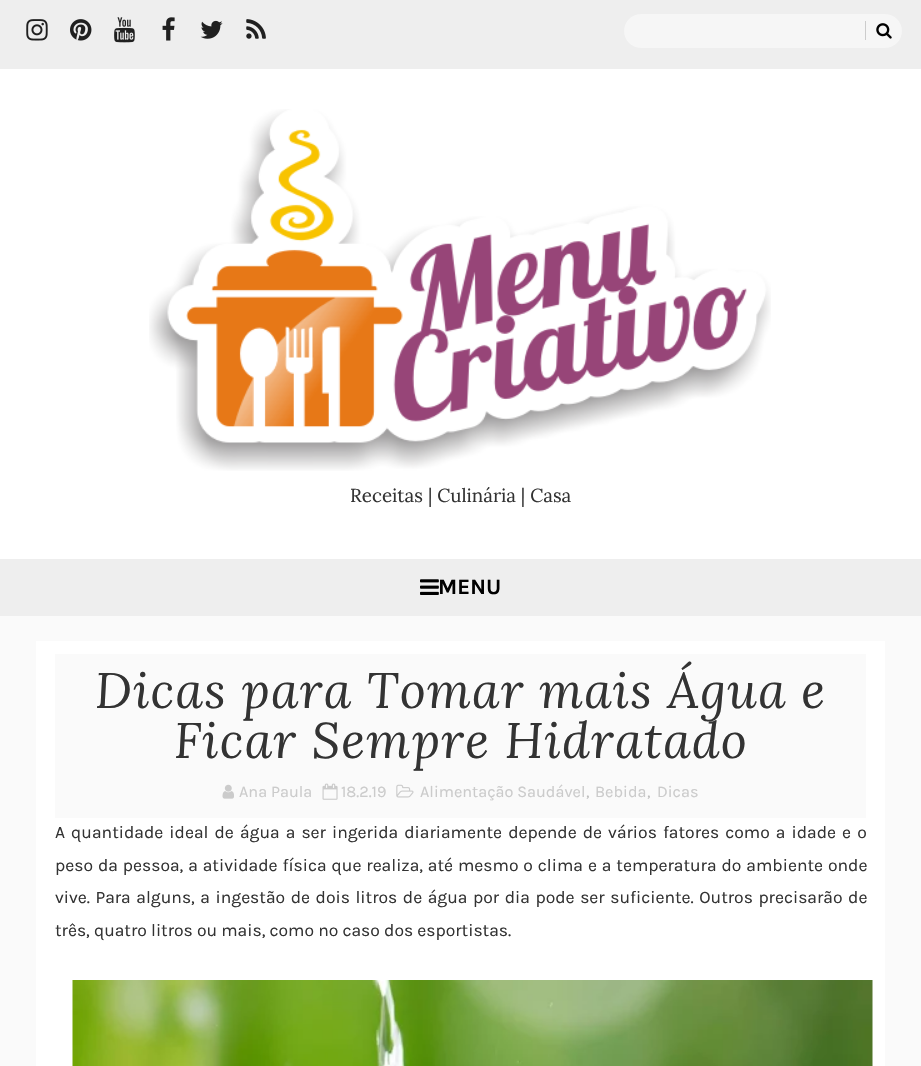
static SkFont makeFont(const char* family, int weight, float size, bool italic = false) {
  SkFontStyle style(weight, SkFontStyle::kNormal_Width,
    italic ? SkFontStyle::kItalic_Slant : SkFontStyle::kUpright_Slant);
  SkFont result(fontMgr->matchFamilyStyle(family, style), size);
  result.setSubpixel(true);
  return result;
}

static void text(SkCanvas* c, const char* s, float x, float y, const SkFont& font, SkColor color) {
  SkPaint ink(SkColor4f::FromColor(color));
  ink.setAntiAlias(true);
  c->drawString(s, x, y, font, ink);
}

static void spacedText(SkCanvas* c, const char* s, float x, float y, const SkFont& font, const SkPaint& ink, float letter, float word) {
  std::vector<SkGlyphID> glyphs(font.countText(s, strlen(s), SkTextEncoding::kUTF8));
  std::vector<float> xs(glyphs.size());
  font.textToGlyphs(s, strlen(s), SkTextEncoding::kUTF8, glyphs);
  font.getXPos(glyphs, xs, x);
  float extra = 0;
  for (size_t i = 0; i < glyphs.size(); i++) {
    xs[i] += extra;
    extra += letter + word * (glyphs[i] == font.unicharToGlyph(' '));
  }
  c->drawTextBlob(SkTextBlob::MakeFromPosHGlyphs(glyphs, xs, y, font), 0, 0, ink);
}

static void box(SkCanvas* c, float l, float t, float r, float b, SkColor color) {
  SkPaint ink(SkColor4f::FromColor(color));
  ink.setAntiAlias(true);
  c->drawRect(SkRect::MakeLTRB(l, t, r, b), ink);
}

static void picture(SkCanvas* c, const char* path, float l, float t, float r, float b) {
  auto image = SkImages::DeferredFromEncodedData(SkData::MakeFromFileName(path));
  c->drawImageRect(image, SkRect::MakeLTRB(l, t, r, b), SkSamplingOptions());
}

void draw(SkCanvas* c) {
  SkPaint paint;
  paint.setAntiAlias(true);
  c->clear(0xfffafafa);
  box(c, 0, 0, 921, 69, 0xffeeeeee);
  picture(c, "img_01.png", 26, 19, 48, 41);
  picture(c, "img_02.png", 70, 19, 92, 41);
  picture(c, "img_03.png", 114, 17, 135, 43);
  picture(c, "img_04.png", 162, 17, 175, 41);
  picture(c, "img_05.png", 200, 20, 223, 39);
  picture(c, "img_06.png", 246, 19, 266, 39);
  paint.setColor(0xfff6f6f6);
  c->drawRoundRect(SkRect::MakeLTRB(623.5f, 13.5f, 902.5f, 48.5f), 17.5f, 17.5f, paint);
  paint.setStyle(SkPaint::kStroke_Style);
  paint.setStrokeWidth(1);
  paint.setColor(0xffeeeeee);
  c->drawRoundRect(SkRect::MakeLTRB(623.5f, 13.5f, 902.5f, 48.5f), 17.5f, 17.5f, paint);
  box(c, 865, 21, 866, 40, 0xffcccccc);
  picture(c, "img_07.png", 876, 23, 892, 39);
  box(c, 0, 69, 921, 559, 0xffffffff);
  picture(c, "img_08.png", 149, 109, 771, 471);
  SkFont face1 = makeFont("Lora", 400, 18.75f);
  text(c, "Receitas | Culinária | Casa", 350, 502, face1, 0xff333333);
  box(c, 0, 559, 921, 616, 0xffeeeeee);
  picture(c, "img_09.png", 420, 579, 439, 595);
  SkFont face2 = makeFont("Karla", 700, 22);
  text(c, "MENU", 438, 594, face2, 0xff000000);
  box(c, 36, 641, 885, 1066, 0xffffffff);
  box(c, 55, 654, 866, 818, 0xfffafafa);
  SkFont face3 = makeFont("Lora", 400, 50, true);
  paint.setStyle(SkPaint::kFill_Style);
  paint.setColor(0xff333333);
  spacedText(c, "Dicas para Tomar mais Água e", 95, 708, face3, paint, 1.25f, 0);
  spacedText(c, "Ficar Sempre Hidratado", 174, 758, face3, paint, 1.25f, 0);
  picture(c, "img_10.png", 222, 784, 234, 799);
  SkFont face4 = makeFont("Karla", 400, 16.25f);
  text(c, "Ana Paula", 239, 797, face4, 0xffcbcbcb);
  picture(c, "img_11.png", 322, 783, 338, 800);
  text(c, "18.2.19", 341, 797, face4, 0xffcbcbcb);
  picture(c, "img_12.png", 396, 784, 414, 798);
  text(c, "Alimentação Saudável", 420, 797, face4, 0xffcbcbcb);
  text(c, ",", 586, 797, face4, 0xffbdbdbd);
  text(c, "Bebida", 595, 797, face4, 0xffcbcbcb);
  text(c, ",", 647, 797, face4, 0xffbdbdbd);
  text(c, "Dicas", 657, 797, face4, 0xffcbcbcb);
  SkFont face5 = makeFont("Karla", 400, 17.5f);
  spacedText(c, "A quantidade ideal de água a ser ingerida diariamente depende de vários fatores como a idade e o", 55, 838, face5, paint, 0, 1.9f);
  spacedText(c, "peso da pessoa, a atividade física que realiza, até mesmo o clima e a temperatura do ambiente onde", 55, 871, face5, paint, 0, 0.75f);
  spacedText(c, "vive. Para alguns, a ingestão de dois litros de água por dia pode ser suficiente. Outros precisarão de", 55, 903, face5, paint, 0, 1.4f);
  text(c, "três, quatro litros ou mais, como no caso dos esportistas.", 55, 936, face5, 0xff333333);
  picture(c, "img_13.png", 72, 980, 873, 1066);
}
